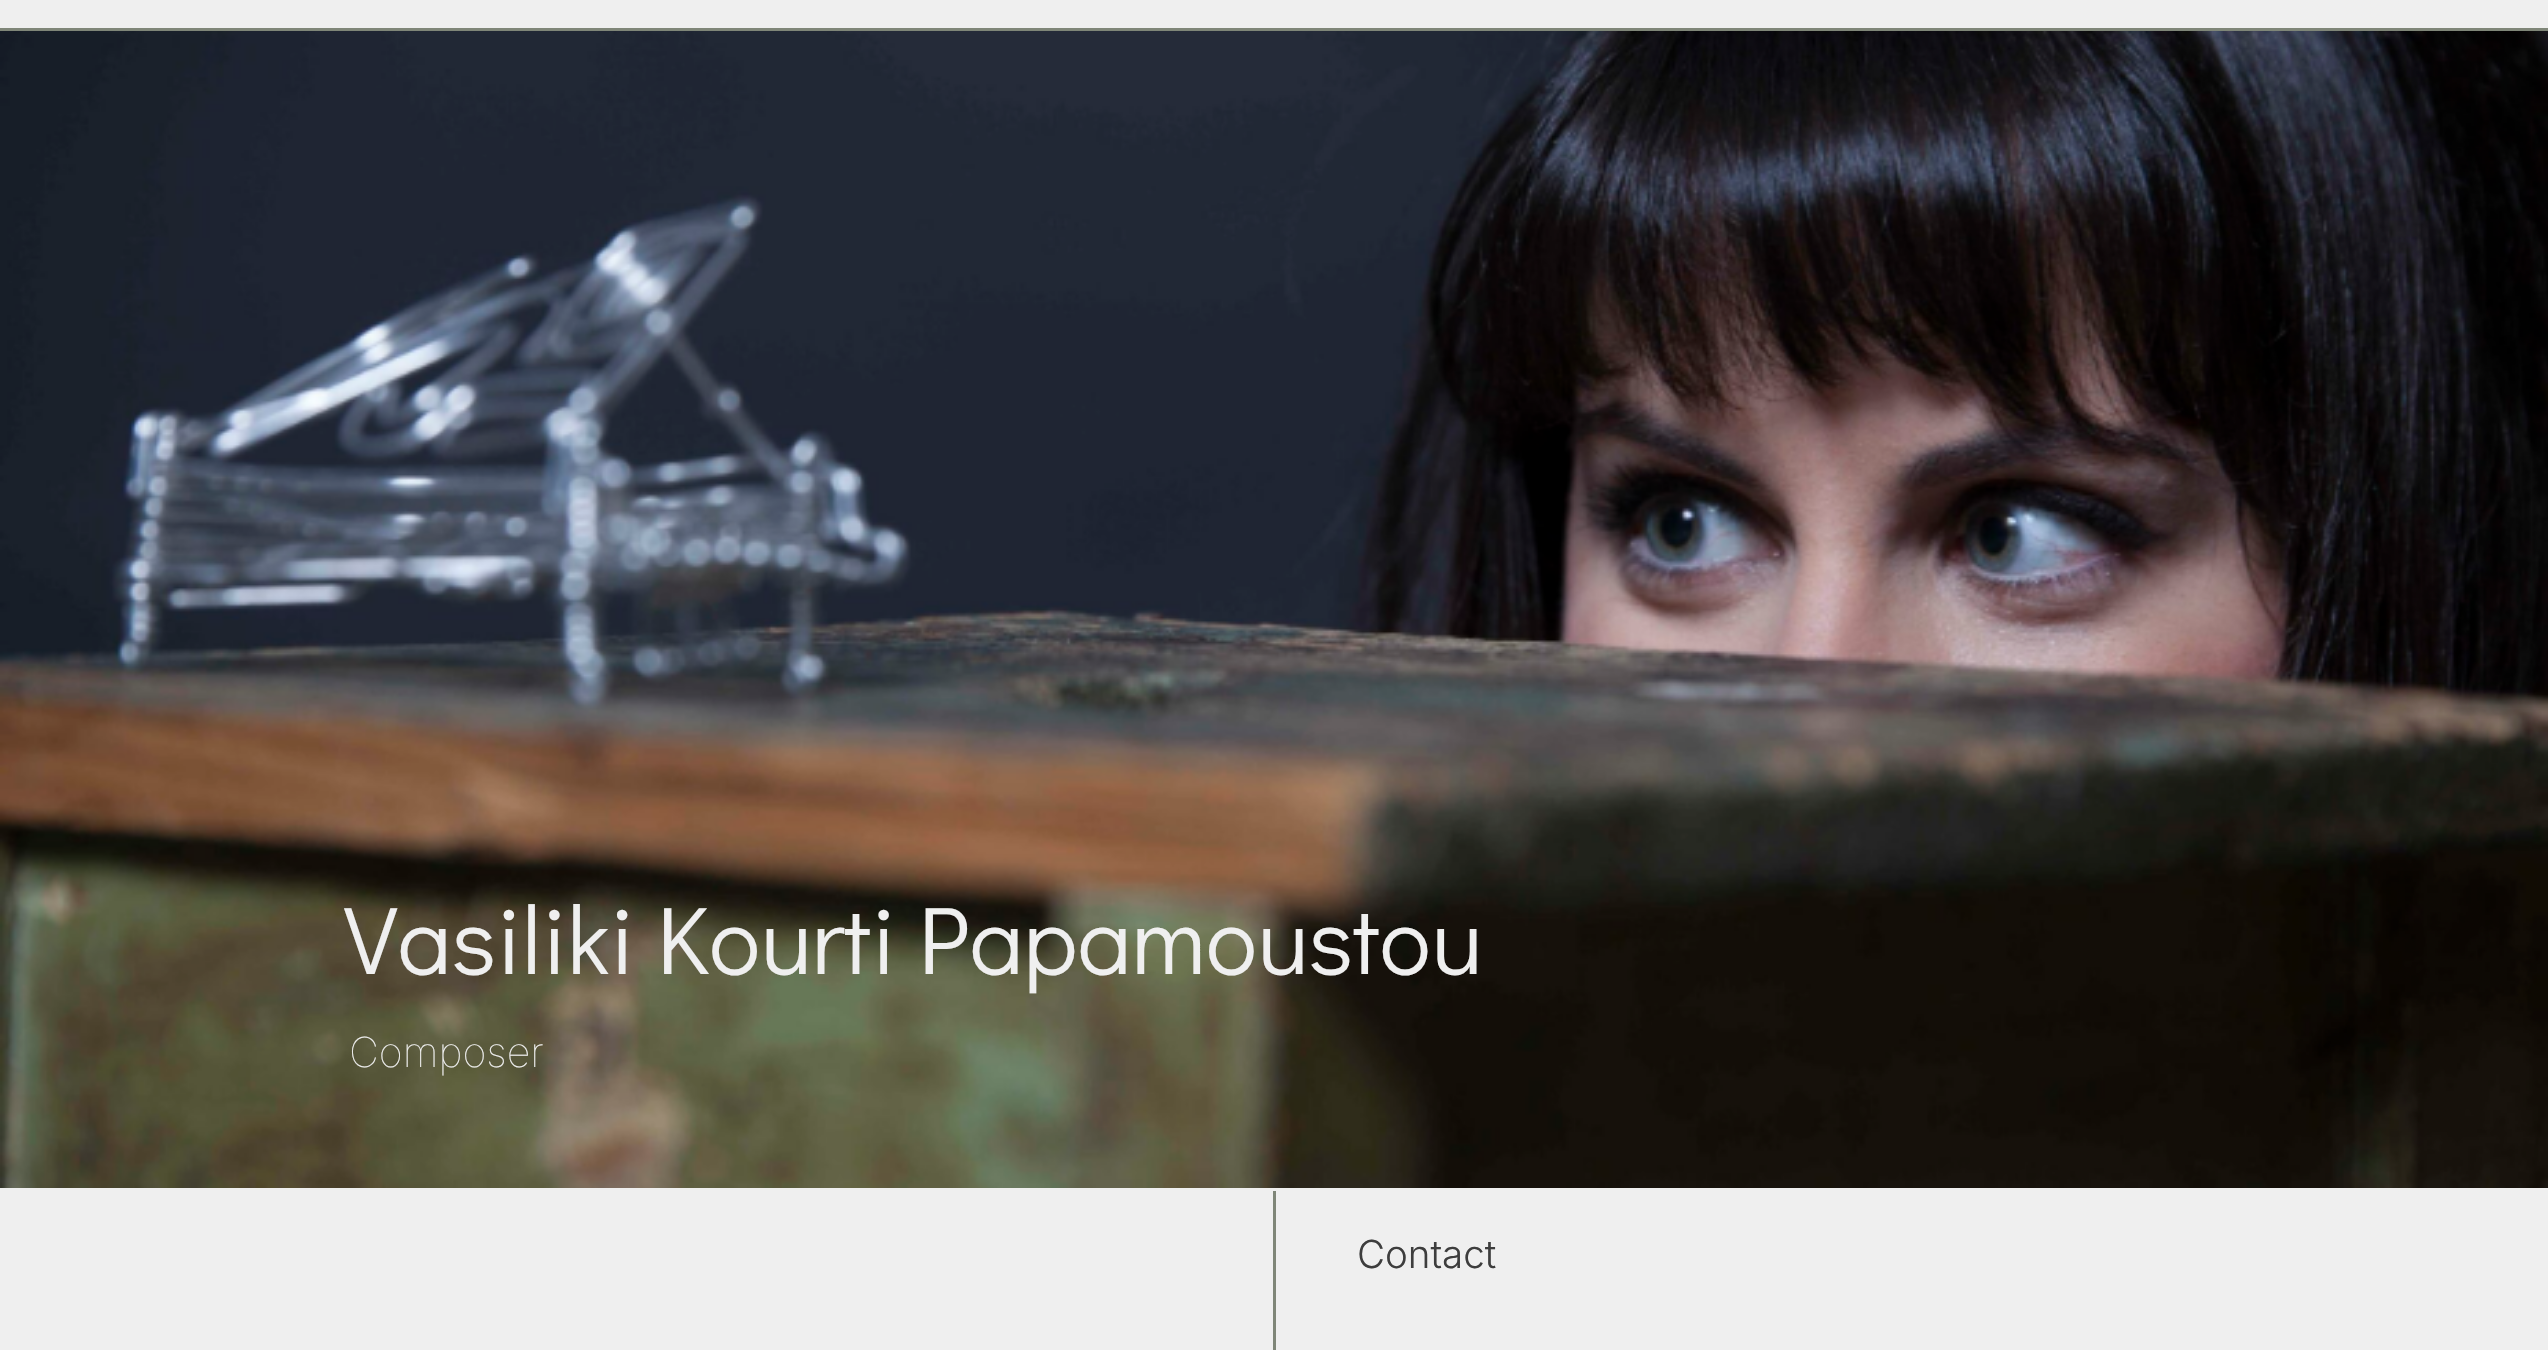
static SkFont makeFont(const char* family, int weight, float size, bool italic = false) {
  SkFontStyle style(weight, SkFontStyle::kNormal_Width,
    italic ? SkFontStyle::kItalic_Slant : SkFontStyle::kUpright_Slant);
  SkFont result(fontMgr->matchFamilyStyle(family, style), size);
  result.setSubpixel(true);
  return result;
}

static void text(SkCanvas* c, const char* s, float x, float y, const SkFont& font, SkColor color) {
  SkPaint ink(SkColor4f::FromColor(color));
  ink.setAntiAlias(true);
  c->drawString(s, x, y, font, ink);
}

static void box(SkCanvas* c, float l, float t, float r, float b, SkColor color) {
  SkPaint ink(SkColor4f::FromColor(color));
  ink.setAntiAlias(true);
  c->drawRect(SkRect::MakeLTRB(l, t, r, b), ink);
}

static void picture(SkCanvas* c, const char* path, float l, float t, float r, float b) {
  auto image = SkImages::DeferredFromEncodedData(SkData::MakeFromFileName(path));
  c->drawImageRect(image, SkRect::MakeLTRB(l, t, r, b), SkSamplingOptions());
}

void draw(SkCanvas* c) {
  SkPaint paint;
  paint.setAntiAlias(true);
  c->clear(0xffefefef);
  box(c, 0, 28, 2548, 31, 0xff7f8678);
  picture(c, "img_01.png", 0, 31, 2548, 1188);
  SkFont face1 = makeFont("Didact Gothic", 400, 96.25f);
  text(c, "Vasiliki Kourti Papamoustou", 344, 974, face1, 0xffefefef);
  SkFont face2 = makeFont("Inter", 100, 41.25f);
  text(c, "Composer", 349, 1067, face2, 0xffefefef);
  box(c, 1273, 1191, 1276, 1350, 0xff7f8678);
  SkFont face3 = makeFont("Inter", 300, 38.5f);
  text(c, "Contact", 1357, 1268, face3, 0xff3d3d3d);
}
